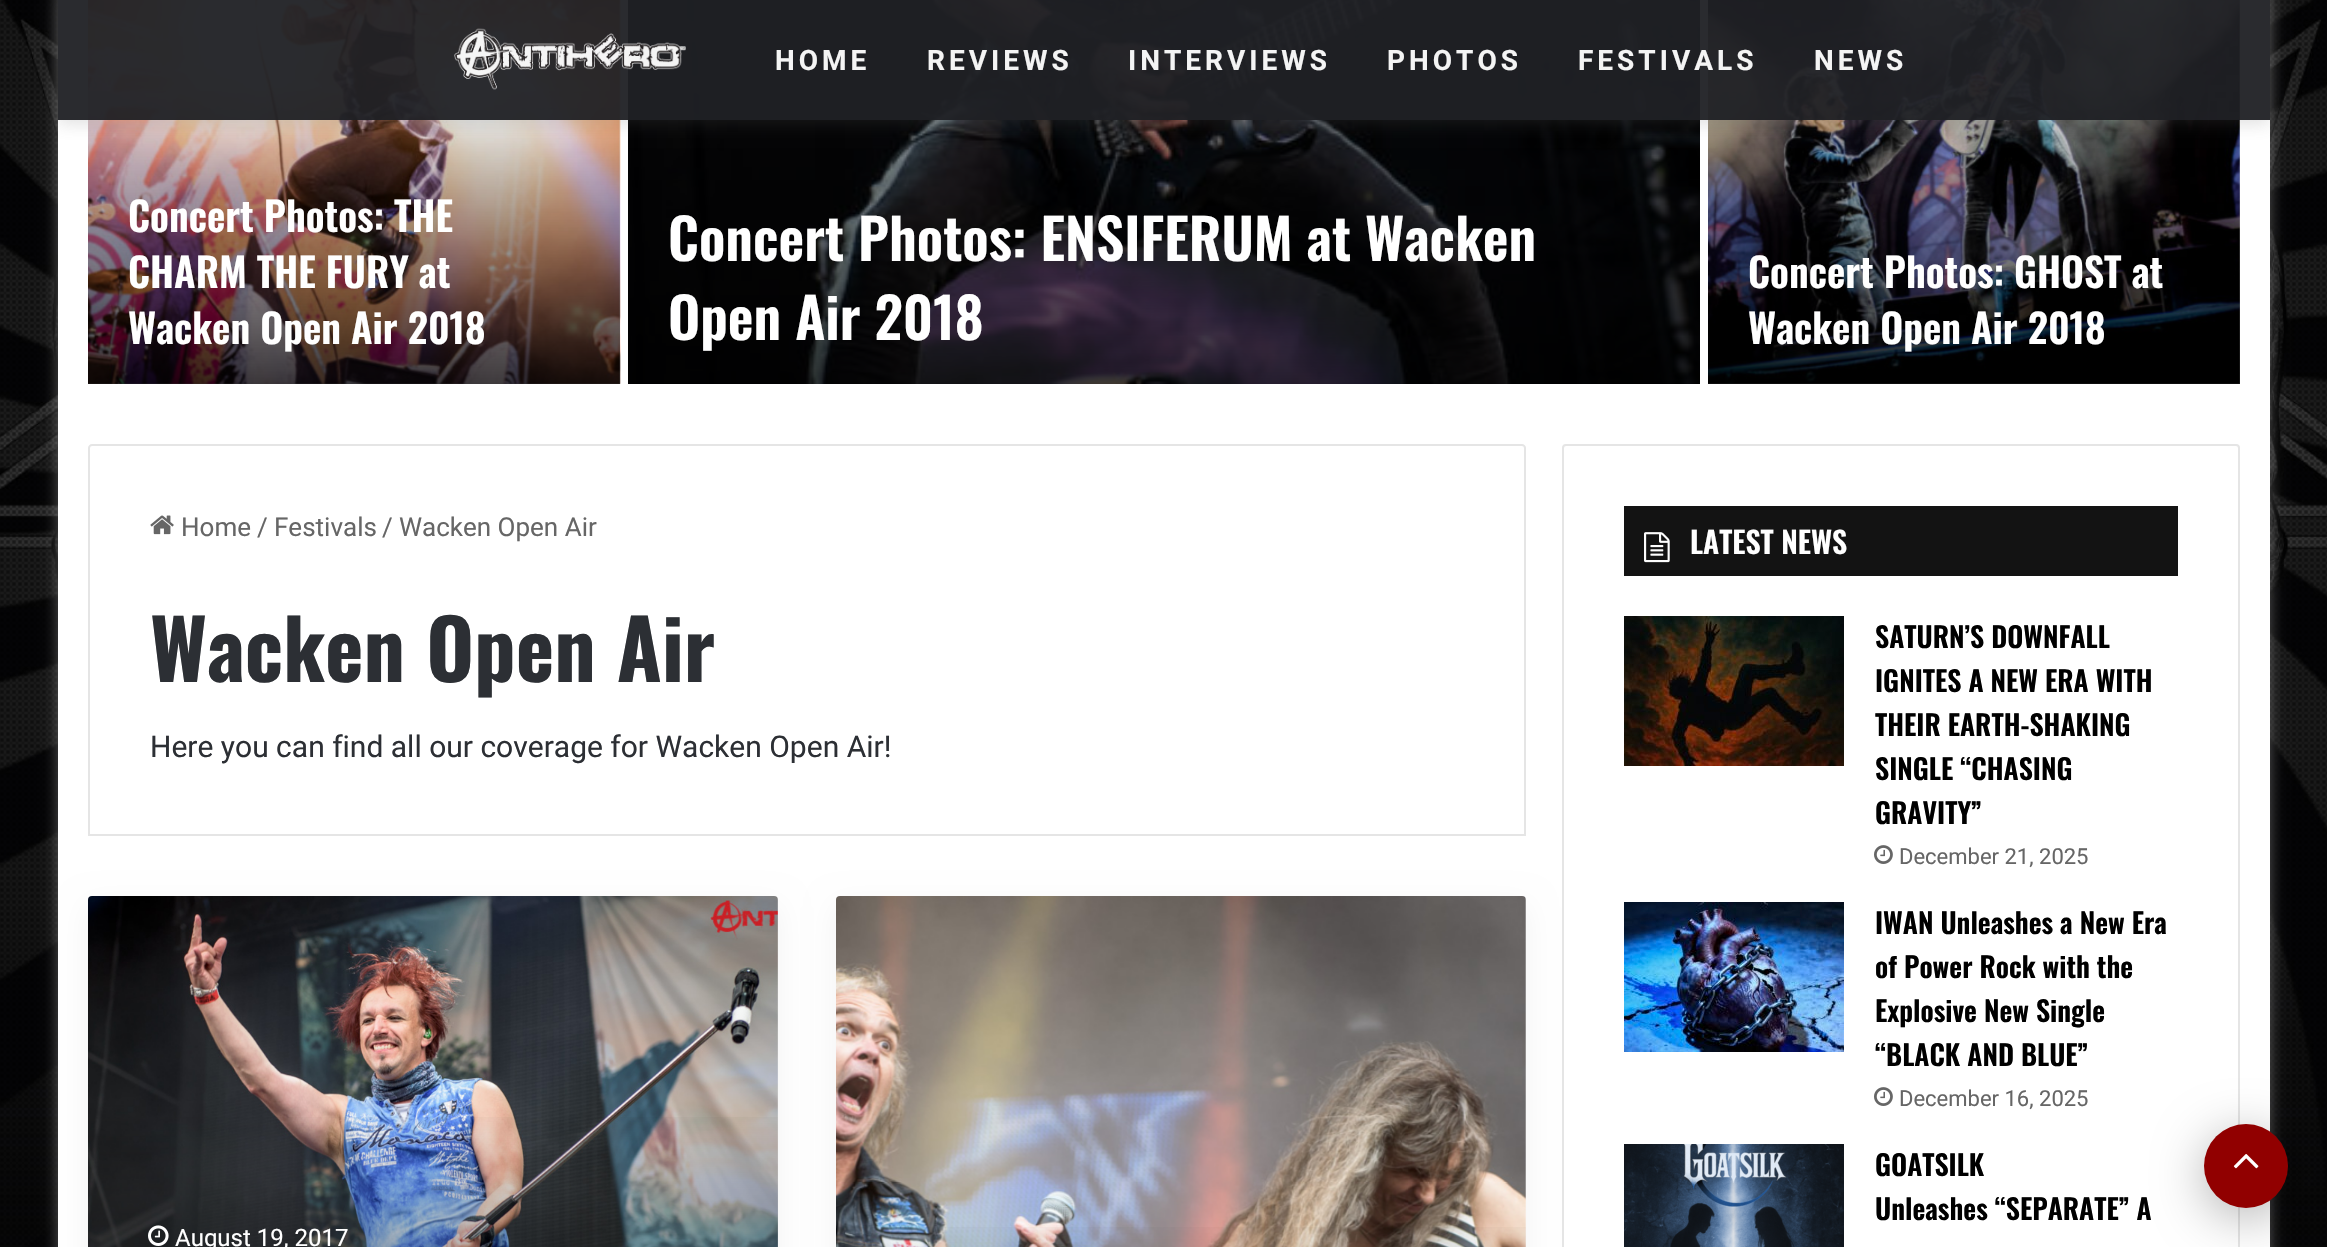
static SkFont makeFont(const char* family, int weight, float size, bool italic = false) {
  SkFontStyle style(weight, SkFontStyle::kNormal_Width,
    italic ? SkFontStyle::kItalic_Slant : SkFontStyle::kUpright_Slant);
  SkFont result(fontMgr->matchFamilyStyle(family, style), size);
  result.setSubpixel(true);
  return result;
}

static void text(SkCanvas* c, const char* s, float x, float y, const SkFont& font, SkColor color) {
  SkPaint ink(SkColor4f::FromColor(color));
  ink.setAntiAlias(true);
  c->drawString(s, x, y, font, ink);
}

static void spacedText(SkCanvas* c, const char* s, float x, float y, const SkFont& font, const SkPaint& ink, float letter, float word) {
  std::vector<SkGlyphID> glyphs(font.countText(s, strlen(s), SkTextEncoding::kUTF8));
  std::vector<float> xs(glyphs.size());
  font.textToGlyphs(s, strlen(s), SkTextEncoding::kUTF8, glyphs);
  font.getXPos(glyphs, xs, x);
  float extra = 0;
  for (size_t i = 0; i < glyphs.size(); i++) {
    xs[i] += extra;
    extra += letter + word * (glyphs[i] == font.unicharToGlyph(' '));
  }
  c->drawTextBlob(SkTextBlob::MakeFromPosHGlyphs(glyphs, xs, y, font), 0, 0, ink);
}

static void box(SkCanvas* c, float l, float t, float r, float b, SkColor color) {
  SkPaint ink(SkColor4f::FromColor(color));
  ink.setAntiAlias(true);
  c->drawRect(SkRect::MakeLTRB(l, t, r, b), ink);
}

static void picture(SkCanvas* c, const char* path, float l, float t, float r, float b) {
  auto image = SkImages::DeferredFromEncodedData(SkData::MakeFromFileName(path));
  c->drawImageRect(image, SkRect::MakeLTRB(l, t, r, b), SkSamplingOptions());
}

void draw(SkCanvas* c) {
  SkPaint paint;
  paint.setAntiAlias(true);
  c->clear(0xffffffff);
  picture(c, "img_01.png", 0, 0, 2327, 1247);
  picture(c, "img_02.png", 0, 0, 2327, 1245);
  paint.setColor(0x80ababab);
  paint.setMaskFilter(SkMaskFilter::MakeBlur(kNormal_SkBlurStyle, 7));
  c->drawRect(SkRect::MakeLTRB(58, -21, 2270, 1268), paint);
  paint.setMaskFilter(nullptr);
  box(c, 58, 0, 2270, 1247, 0xffffffff);
  picture(c, "img_04.png", 88, 0, 621, 384);
  {
    const SkColor colors[] = {0x00000000, 0xbf000000};
    const float stops[] = {0, 1};
    const SkPoint ends[] = {{354, 82}, {354, 384}};
    paint.setShader(SkGradientShader::MakeLinear(ends, colors, stops, 2, SkTileMode::kClamp));
    paint.setAlpha(255);
  }
  c->drawRect(SkRect::MakeLTRB(88, 91, 620, 384), paint);
  picture(c, "img_05.png", 628, 0, 1700, 384);
  picture(c, "img_06.png", 1708, 0, 2240, 384);
  {
    const SkColor colors[] = {0x00000000, 0xbf000000};
    const float stops[] = {0, 1};
    const SkPoint ends[] = {{1974, 82}, {1974, 384}};
    paint.setShader(SkGradientShader::MakeLinear(ends, colors, stops, 2, SkTileMode::kClamp));
    paint.setAlpha(255);
  }
  c->drawRect(SkRect::MakeLTRB(1708, 91, 2240, 384), paint);
  c->save();
  c->clipPath(SkPathBuilder(SkPathFillType::kEvenOdd).moveTo(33, 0).lineTo(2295, 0).lineTo(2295, 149).lineTo(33, 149).close().moveTo(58, 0).lineTo(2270, 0).lineTo(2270, 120).lineTo(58, 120).close().detach(), true);
  paint.setShader(nullptr);
  paint.setColor(0x33636363);
  paint.setMaskFilter(SkMaskFilter::MakeBlur(kNormal_SkBlurStyle, 8));
  c->drawRect(SkRect::MakeLTRB(58, 4, 2270, 124), paint);
  paint.setMaskFilter(nullptr);
  c->restore();
  box(c, 58, 0, 2270, 120, 0xf21f2024);
  picture(c, "img_03.png", 454, 28, 686, 90);
  SkFont face1 = makeFont("Roboto", 700, 28);
  paint.setColor(0xfff4f4f4);
  spacedText(c, "HOME", 775, 70, face1, paint, 4, 0);
  spacedText(c, "REVIEWS", 927, 70, face1, paint, 4, 0);
  spacedText(c, "INTERVIEWS", 1128, 70, face1, paint, 4, 0);
  spacedText(c, "PHOTOS", 1387, 70, face1, paint, 4, 0);
  spacedText(c, "FESTIVALS", 1578, 70, face1, paint, 4, 0);
  spacedText(c, "NEWS", 1814, 70, face1, paint, 4, 0);
  SkFont face2 = makeFont("Oswald", 600, 40);
  text(c, "Concert Photos: THE", 128, 232, face2, 0xffffffff);
  text(c, "CHARM THE FURY at", 128, 288, face2, 0xffffffff);
  text(c, "Wacken Open Air 2018", 128, 344, face2, 0xffffffff);
  SkFont face3 = makeFont("Oswald", 600, 56);
  text(c, "Concert Photos: ENSIFERUM at Wacken", 668, 261, face3, 0xffffffff);
  text(c, "Open Air 2018", 668, 340, face3, 0xffffffff);
  text(c, "Concert Photos: GHOST at", 1748, 288, face2, 0xffffffff);
  text(c, "Wacken Open Air 2018", 1748, 344, face2, 0xffffffff);
  paint.setStyle(SkPaint::kStroke_Style);
  paint.setStrokeWidth(2);
  paint.setColor(0xffe5e5e5);
  c->drawPath(SkPathBuilder().moveTo(92, 445).lineTo(1522, 445).cubicTo(1523.5f, 445, 1525, 446.5f, 1525, 448).lineTo(1525, 835).lineTo(89, 835).lineTo(89, 448).cubicTo(89, 446.5f, 90.5f, 445, 92, 445).close().detach(), paint);
  picture(c, "img_07.png", 150, 515, 174, 535);
  SkFont face4 = makeFont("Roboto", 400, 26);
  text(c, "Home", 181, 536, face4, 0xff666666);
  text(c, "/", 257, 536, face4, 0xff666666);
  text(c, "Festivals", 274, 536, face4, 0xff666666);
  text(c, "/", 382, 536, face4, 0xff666666);
  text(c, "Wacken Open Air", 399, 536, face4, 0xff666666);
  SkFont face5 = makeFont("Oswald", 700, 82);
  text(c, "Wacken Open Air", 150, 682, face5, 0xff2c2f34);
  SkFont face6 = makeFont("Roboto", 400, 30);
  text(c, "Here you can find all our coverage for Wacken Open Air!", 150, 757, face6, 0xff2c2f34);
  paint.setStyle(SkPaint::kFill_Style);
  paint.setColor(0x0d000000);
  paint.setMaskFilter(SkMaskFilter::MakeBlur(kNormal_SkBlurStyle, 15));
  c->drawRoundRect(SkRect::MakeLTRB(88, 906, 778, 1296), 4, 4, paint);
  paint.setMaskFilter(nullptr);
  picture(c, "img_08.png", 88, 896, 778, 1247);
  {
    const SkColor colors[] = {0x00000000, 0xbf000000};
    const float stops[] = {0, 1};
    const SkPoint ends[] = {{433, 1106}, {433, 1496}};
    paint.setShader(SkGradientShader::MakeLinear(ends, colors, stops, 2, SkTileMode::kClamp));
    paint.setAlpha(255);
  }
  c->drawRect(SkRect::MakeLTRB(88, 1117, 778, 1247), paint);
  picture(c, "img_09.png", 148, 1225, 169, 1246);
  SkFont face7 = makeFont("Roboto", 400, 24);
  text(c, "August 19, 2017", 175, 1246, face7, 0xffffffff);
  paint.setShader(nullptr);
  paint.setColor(0x0d000000);
  paint.setMaskFilter(SkMaskFilter::MakeBlur(kNormal_SkBlurStyle, 15));
  c->drawRoundRect(SkRect::MakeLTRB(836, 906, 1526, 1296), 4, 4, paint);
  paint.setMaskFilter(nullptr);
  picture(c, "img_10.png", 836, 896, 1526, 1247);
  {
    const SkColor colors[] = {0x00000000, 0xbf000000};
    const float stops[] = {0, 1};
    const SkPoint ends[] = {{1181, 1210}, {1181, 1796}};
    paint.setShader(SkGradientShader::MakeLinear(ends, colors, stops, 2, SkTileMode::kClamp));
    paint.setAlpha(255);
  }
  c->drawRect(SkRect::MakeLTRB(836, 1227, 1526, 1247), paint);
  paint.setStyle(SkPaint::kStroke_Style);
  paint.setShader(nullptr);
  paint.setColor(0xffe5e5e5);
  c->drawRoundRect(SkRect::MakeLTRB(1563, 445, 2239, 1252), 3, 3, paint);
  box(c, 1624, 506, 2178, 576, 0xff131313);
  picture(c, "img_11.png", 1644, 532, 1670, 563);
  SkFont face8 = makeFont("Oswald", 600, 30);
  text(c, "LATEST NEWS", 1690, 554, face8, 0xffffffff);
  picture(c, "img_12.png", 1624, 616, 1844, 766);
  SkFont face9 = makeFont("Oswald", 600, 28);
  text(c, "SATURN’S DOWNFALL", 1875, 648, face9, 0xff000000);
  text(c, "IGNITES A NEW ERA WITH", 1875, 692, face9, 0xff000000);
  text(c, "THEIR EARTH-SHAKING", 1875, 736, face9, 0xff000000);
  text(c, "SINGLE “CHASING", 1875, 780, face9, 0xff000000);
  text(c, "GRAVITY”", 1875, 824, face9, 0xff000000);
  picture(c, "img_13.png", 1874, 845, 1893, 864);
  SkFont face10 = makeFont("Roboto", 400, 22);
  text(c, "December 21, 2025", 1899, 864, face10, 0xff666666);
  picture(c, "img_14.png", 1624, 902, 1844, 1052);
  text(c, "IWAN Unleashes a New Era", 1875, 934, face9, 0xff000000);
  text(c, "of Power Rock with the", 1875, 978, face9, 0xff000000);
  text(c, "Explosive New Single", 1875, 1022, face9, 0xff000000);
  text(c, "“BLACK AND BLUE”", 1875, 1066, face9, 0xff000000);
  picture(c, "img_13.png", 1874, 1087, 1893, 1106);
  text(c, "December 16, 2025", 1899, 1106, face10, 0xff666666);
  picture(c, "img_15.png", 1624, 1144, 1844, 1247);
  text(c, "GOATSILK", 1875, 1176, face9, 0xff000000);
  text(c, "Unleashes “SEPARATE” A", 1875, 1220, face9, 0xff000000);
  paint.setStyle(SkPaint::kFill_Style);
  paint.setColor(0x4d000000);
  paint.setMaskFilter(SkMaskFilter::MakeBlur(kNormal_SkBlurStyle, 25));
  c->drawRoundRect(SkRect::MakeLTRB(2204, 1134, 2288, 1218), 42, 42, paint);
  paint.setMaskFilter(nullptr);
  paint.setColor(0xff910000);
  c->drawCircle(2246, 1166, 42, paint);
  picture(c, "img_16.png", 2233, 1154, 2259, 1169);
}
